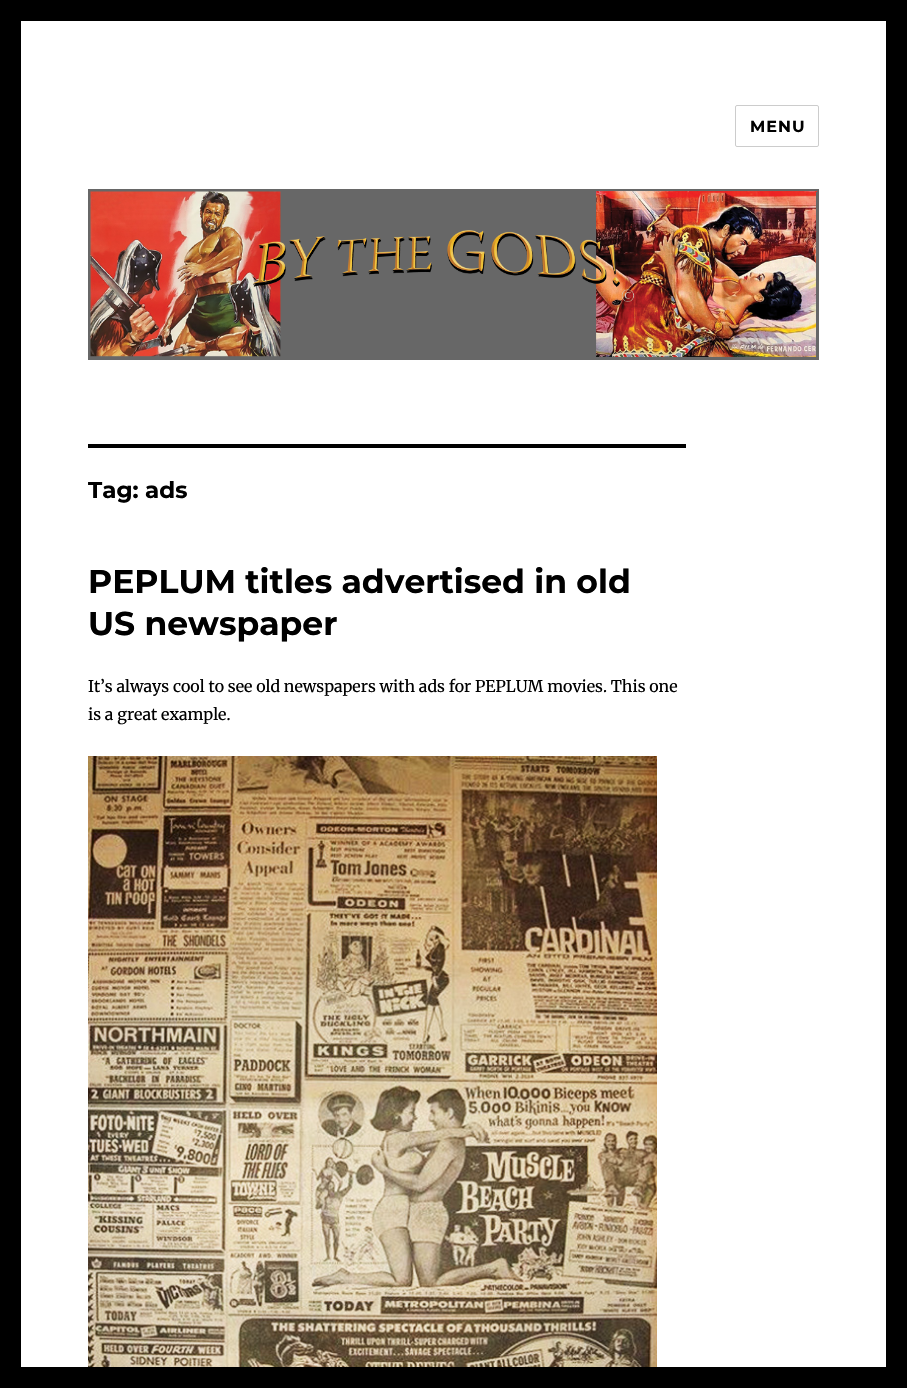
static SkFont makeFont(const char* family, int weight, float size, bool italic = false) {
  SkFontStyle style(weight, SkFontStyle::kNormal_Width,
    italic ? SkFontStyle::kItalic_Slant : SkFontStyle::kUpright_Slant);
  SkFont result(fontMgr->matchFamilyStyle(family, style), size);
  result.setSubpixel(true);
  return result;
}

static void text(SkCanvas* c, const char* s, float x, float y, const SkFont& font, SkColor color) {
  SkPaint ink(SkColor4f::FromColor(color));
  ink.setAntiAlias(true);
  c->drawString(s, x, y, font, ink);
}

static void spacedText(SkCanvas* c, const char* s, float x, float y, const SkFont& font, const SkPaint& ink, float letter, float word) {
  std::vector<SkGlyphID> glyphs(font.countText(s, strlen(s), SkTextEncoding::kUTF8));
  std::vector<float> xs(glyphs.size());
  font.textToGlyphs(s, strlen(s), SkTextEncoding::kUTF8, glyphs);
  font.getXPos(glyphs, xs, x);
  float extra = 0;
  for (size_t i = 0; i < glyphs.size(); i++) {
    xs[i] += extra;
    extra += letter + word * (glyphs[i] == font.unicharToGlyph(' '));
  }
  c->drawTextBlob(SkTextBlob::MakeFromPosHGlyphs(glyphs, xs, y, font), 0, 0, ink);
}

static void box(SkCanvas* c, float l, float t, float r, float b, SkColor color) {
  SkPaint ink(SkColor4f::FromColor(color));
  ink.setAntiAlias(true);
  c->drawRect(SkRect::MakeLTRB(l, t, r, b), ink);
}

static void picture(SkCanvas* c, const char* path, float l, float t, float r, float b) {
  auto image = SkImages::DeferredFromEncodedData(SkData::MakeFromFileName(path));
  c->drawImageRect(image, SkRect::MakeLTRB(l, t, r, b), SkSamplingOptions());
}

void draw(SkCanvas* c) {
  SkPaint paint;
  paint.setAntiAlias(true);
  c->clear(0xff000000);
  box(c, 21, 21, 886, 1367, 0xffffffff);
  paint.setStyle(SkPaint::kStroke_Style);
  paint.setStrokeWidth(1);
  paint.setColor(0xffcccccc);
  c->drawRoundRect(SkRect::MakeLTRB(735.5f, 105.5f, 818.5f, 146.5f), 1.5f, 1.5f, paint);
  SkFont face1 = makeFont("Montserrat", 700, 16);
  paint.setStyle(SkPaint::kFill_Style);
  paint.setColor(0xff000000);
  spacedText(c, "MENU", 750, 132, face1, paint, 1, 0);
  picture(c, "img_01.png", 88, 189, 819, 360);
  box(c, 88, 444, 686, 448, 0xff000000);
  SkFont face2 = makeFont("Montserrat", 700, 23);
  text(c, "Tag: ads", 88, 498, face2, 0xff000000);
  SkFont face3 = makeFont("Montserrat", 700, 33);
  text(c, "PEPLUM titles advertised in old", 88, 593, face3, 0xff000000);
  text(c, "US newspaper", 88, 635, face3, 0xff000000);
  SkFont face4 = makeFont("Merriweather", 400, 16);
  text(c, "It’s always cool to see old newspapers with ads for PEPLUM movies. This one", 88, 692, face4, 0xff000000);
  text(c, "is a great example.", 88, 720, face4, 0xff000000);
  picture(c, "img_02.png", 88, 756, 657, 1367);
}
